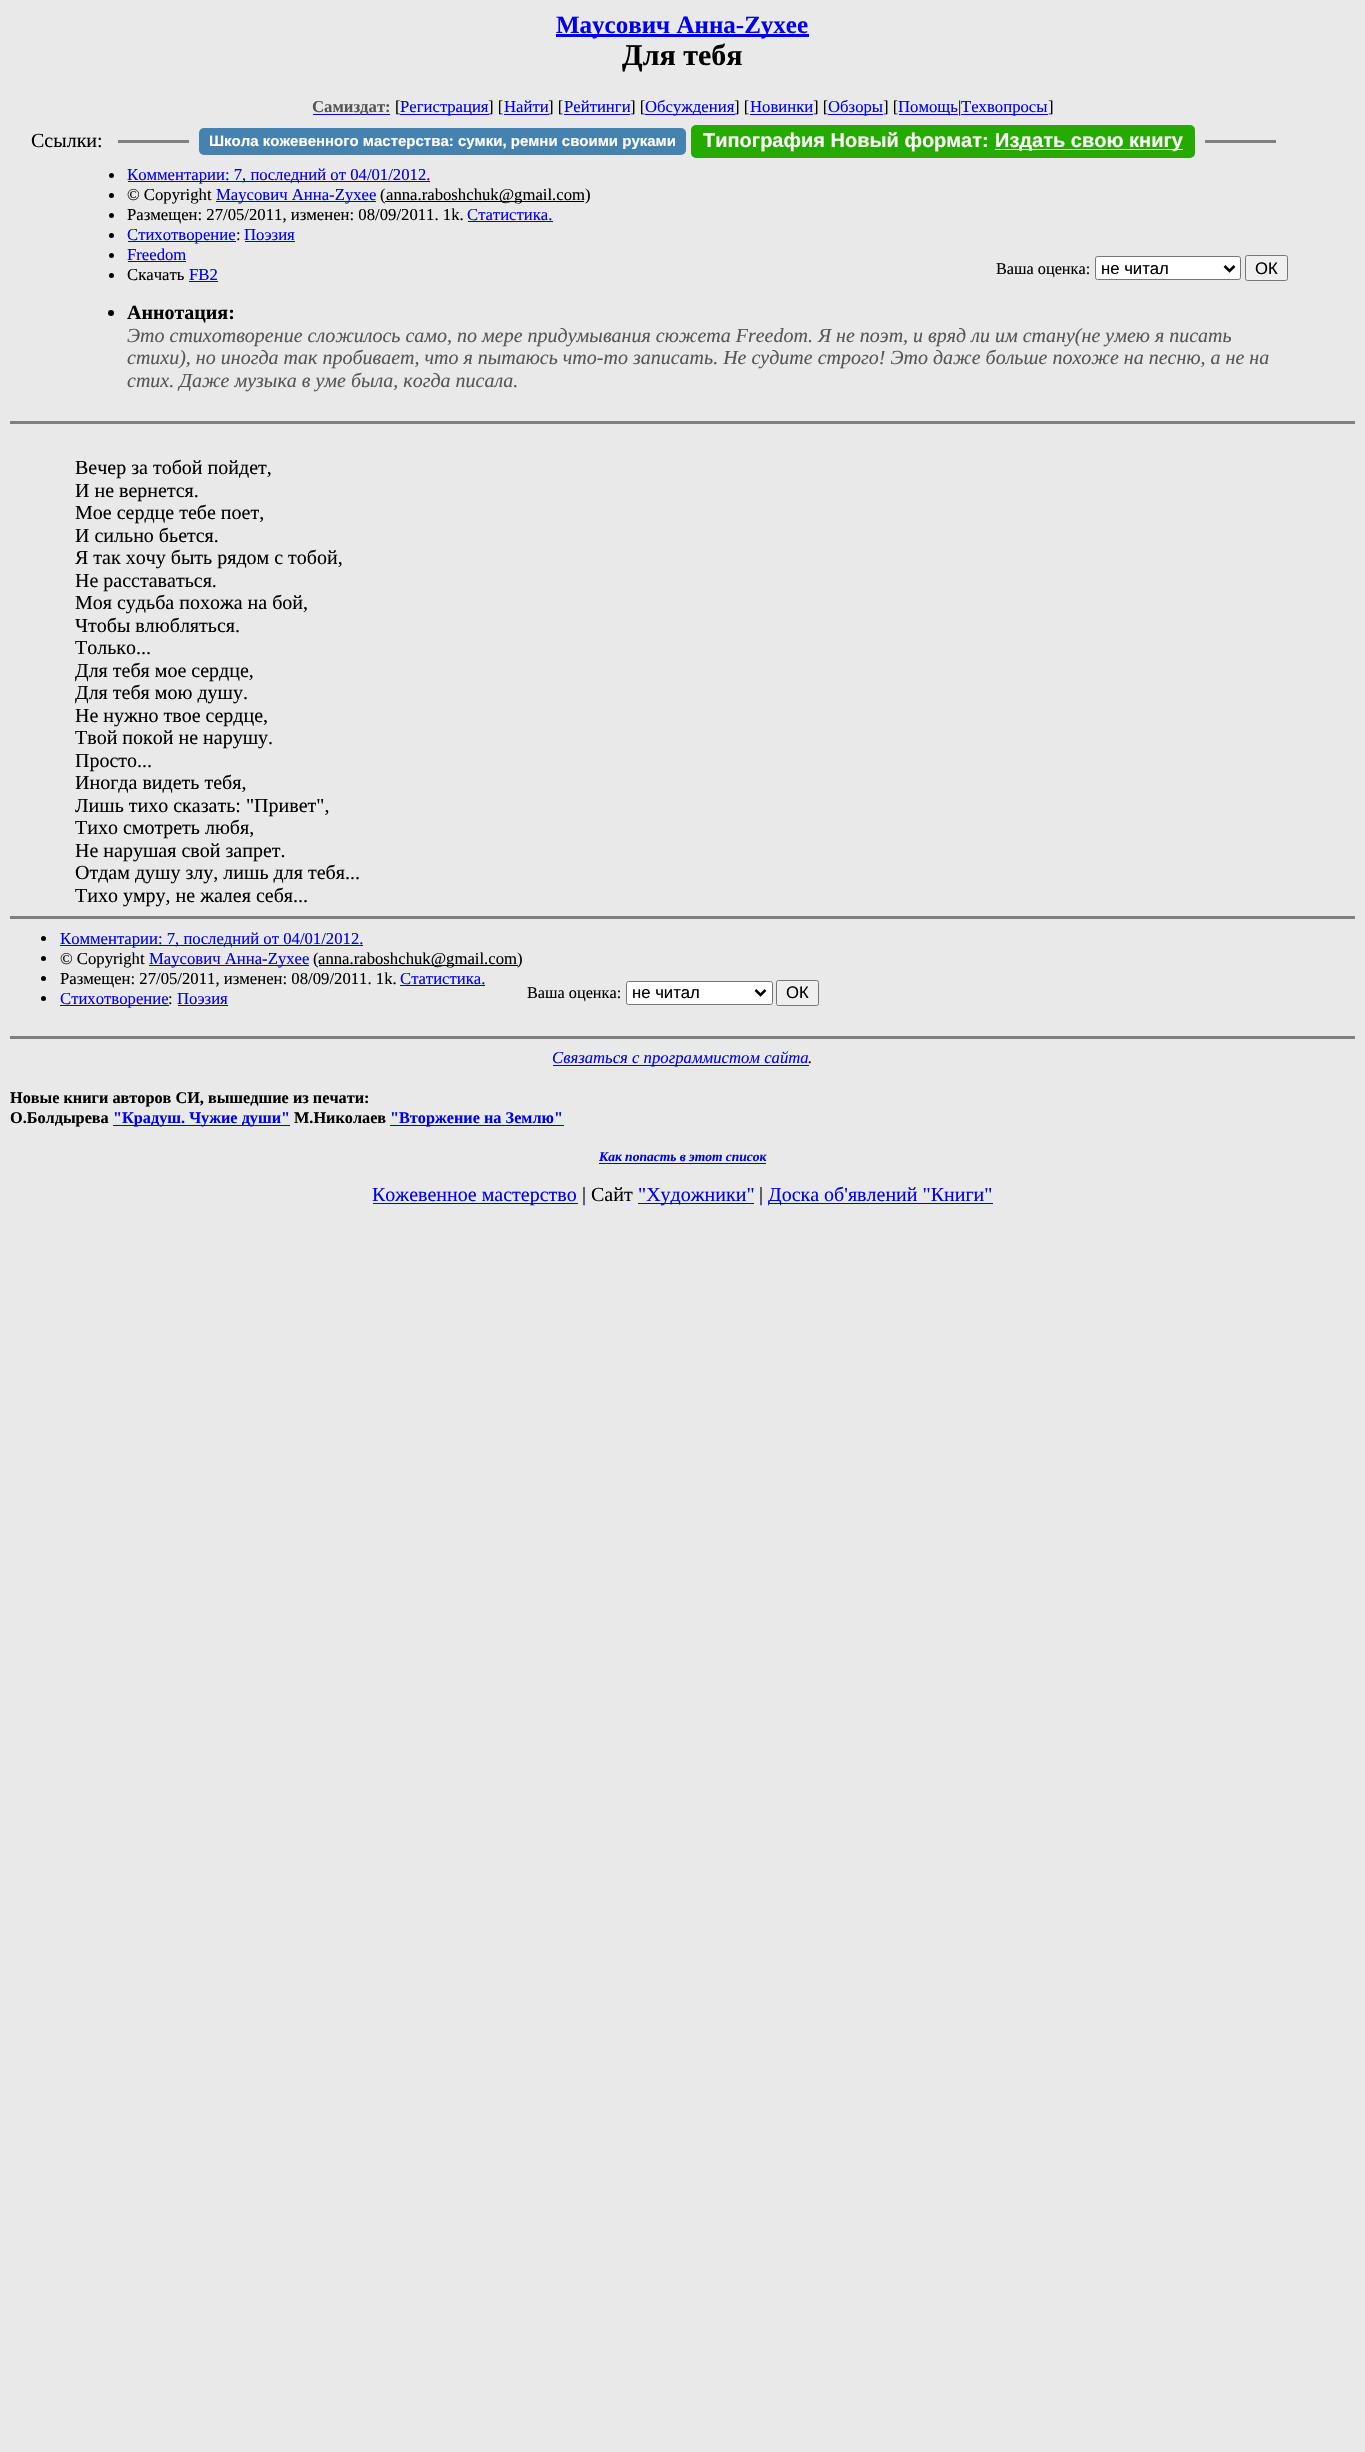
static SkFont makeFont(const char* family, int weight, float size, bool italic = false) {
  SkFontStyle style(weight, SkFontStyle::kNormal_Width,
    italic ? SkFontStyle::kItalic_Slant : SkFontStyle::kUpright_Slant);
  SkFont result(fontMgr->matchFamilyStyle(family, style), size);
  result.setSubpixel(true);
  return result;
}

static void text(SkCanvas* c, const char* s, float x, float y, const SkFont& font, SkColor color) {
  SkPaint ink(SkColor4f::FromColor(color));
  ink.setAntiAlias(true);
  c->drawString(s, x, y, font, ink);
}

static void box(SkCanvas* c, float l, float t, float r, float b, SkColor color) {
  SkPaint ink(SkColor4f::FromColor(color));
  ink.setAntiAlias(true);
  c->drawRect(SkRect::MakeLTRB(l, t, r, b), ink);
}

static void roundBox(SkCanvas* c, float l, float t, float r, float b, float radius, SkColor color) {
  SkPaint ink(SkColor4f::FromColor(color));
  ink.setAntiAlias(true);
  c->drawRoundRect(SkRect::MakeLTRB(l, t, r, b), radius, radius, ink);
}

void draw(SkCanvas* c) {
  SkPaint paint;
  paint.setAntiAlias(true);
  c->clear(0xffe9e9e9);
  box(c, 556, 34, 809, 37, 0xff0000ee);
  SkFont face1 = makeFont("Liberation Serif", 700, 25);
  text(c, "Маусович Анна-Zyxee", 556, 33, face1, 0xff0000ee);
  SkFont face2 = makeFont("Liberation Serif", 700, 30);
  text(c, "Для тебя", 622, 65, face2, 0xff000000);
  box(c, 313, 114, 390, 115, 0xff0000ee);
  SkFont face3 = makeFont("Liberation Serif", 700, 16.7f);
  text(c, "Самиздат:", 312, 112, face3, 0xff555555);
  SkFont face4 = makeFont("Liberation Serif", 400, 16.7f);
  text(c, "[", 395, 112, face4, 0xff000000);
  box(c, 400, 114, 489, 115, 0xff0000ee);
  text(c, "Регистрация", 400, 112, face4, 0xff0000ee);
  text(c, "] [", 488, 112, face4, 0xff000000);
  box(c, 504, 114, 549, 115, 0xff0000ee);
  text(c, "Найти", 504, 112, face4, 0xff0000ee);
  text(c, "] [", 548, 112, face4, 0xff000000);
  text(c, "Рейтинги", 564, 112, face4, 0xff0000ee);
  text(c, "] [", 630, 112, face4, 0xff000000);
  box(c, 564, 114, 630, 115, 0xff0000ee);
  box(c, 645, 114, 735, 115, 0xff0000ee);
  text(c, "Обсуждения", 645, 112, face4, 0xff0000ee);
  text(c, "] [", 734, 112, face4, 0xff000000);
  box(c, 750, 114, 813, 115, 0xff0000ee);
  text(c, "Новинки", 750, 112, face4, 0xff0000ee);
  text(c, "] [", 813, 112, face4, 0xff000000);
  box(c, 828, 114, 883, 115, 0xff0000ee);
  text(c, "Обзоры", 828, 112, face4, 0xff0000ee);
  text(c, "] [", 883, 112, face4, 0xff000000);
  box(c, 899, 114, 958, 115, 0xff0000ee);
  text(c, "Помощь", 898, 112, face4, 0xff0000ee);
  text(c, "|", 958, 112, face4, 0xff000000);
  box(c, 961, 114, 1048, 115, 0xff0000ee);
  text(c, "Техвопросы", 961, 112, face4, 0xff0000ee);
  text(c, "]", 1048, 112, face4, 0xff000000);
  SkFont face5 = makeFont("Liberation Serif", 400, 20);
  text(c, "Ссылки:", 31, 147, face5, 0xff000000);
  box(c, 118, 140, 189, 143, 0xff808080);
  roundBox(c, 199, 128, 686, 155, 5, 0xff4582af);
  SkFont face6 = makeFont("Liberation Sans", 700, 15);
  text(c, "Школа кожевенного мастерства: сумки, ремни своими руками", 209, 146, face6, 0xffffffff);
  roundBox(c, 691, 125, 1195, 158, 5, 0xff25aa00);
  SkFont face7 = makeFont("Liberation Sans", 700, 20);
  text(c, "Типография Новый формат:", 703, 147, face7, 0xffffffff);
  box(c, 995, 149, 1183, 150, 0xffffffff);
  text(c, "Издать свою книгу", 995, 147, face7, 0xffffffff);
  box(c, 1205, 140, 1276, 143, 0xff808080);
  paint.setColor(0xff000000);
  c->drawCircle(111.5f, 175.5f, 2.5f, paint);
  box(c, 128, 181, 430, 182, 0xff0000ee);
  text(c, "Комментарии: 7, последний от 04/01/2012.", 127, 180, face4, 0xff0000ee);
  c->drawCircle(111.5f, 195.5f, 2.5f, paint);
  text(c, "© Copyright", 127, 200, face4, 0xff000000);
  box(c, 216, 201, 376, 202, 0xff0000ee);
  text(c, "Маусович Анна-Zyxee", 216, 200, face4, 0xff0000ee);
  text(c, "(", 380, 200, face4, 0xff000000);
  box(c, 385, 201, 584, 202, 0xff000000);
  text(c, "anna.raboshchuk@gmail.com)", 386, 200, face4, 0xff000000);
  c->drawCircle(111.5f, 215.5f, 2.5f, paint);
  text(c, "Размещен: 27/05/2011, изменен: 08/09/2011. 1k.", 127, 220, face4, 0xff000000);
  text(c, "Статистика.", 467, 220, face4, 0xff0000ee);
  box(c, 468, 221, 553, 222, 0xff0000ee);
  c->drawCircle(111.5f, 235.5f, 2.5f, paint);
  box(c, 128, 241, 236, 242, 0xff0000ee);
  text(c, "Стихотворение", 127, 240, face4, 0xff0000ee);
  text(c, ":", 236, 240, face4, 0xff000000);
  text(c, "Поэзия", 244, 240, face4, 0xff0000ee);
  box(c, 245, 241, 295, 242, 0xff0000ee);
  c->drawCircle(111.5f, 255.5f, 2.5f, paint);
  text(c, "Freedom", 127, 260, face4, 0xff0000ee);
  box(c, 128, 261, 186, 262, 0xff0000ee);
  c->drawCircle(111.5f, 275.5f, 2.5f, paint);
  text(c, "Скачать", 127, 280, face4, 0xff000000);
  text(c, "FB2", 189, 280, face4, 0xff0000ee);
  box(c, 189, 281, 218, 282, 0xff0000ee);
  SkFont face8 = makeFont("Liberation Serif", 400, 16.25f);
  text(c, "Ваша оценка:", 996, 274, face8, 0xff000000);
  paint.setColor(0xffffffff);
  c->drawRoundRect(SkRect::MakeLTRB(1095.5f, 256.5f, 1240.5f, 279.5f), 2, 2, paint);
  paint.setStyle(SkPaint::kStroke_Style);
  paint.setStrokeWidth(1);
  paint.setColor(0xff767676);
  c->drawRoundRect(SkRect::MakeLTRB(1095.5f, 256.5f, 1240.5f, 279.5f), 2, 2, paint);
  paint.setStrokeWidth(2.5f);
  paint.setColor(0xff000000);
  c->drawPath(SkPathBuilder().moveTo(1224.5f, 266).lineTo(1229.5f, 271).lineTo(1234.5f, 266).detach(), paint);
  SkFont face9 = makeFont("Liberation Sans", 400, 16.7f);
  text(c, "не читал", 1101, 274, face9, 0xff000000);
  paint.setStyle(SkPaint::kFill_Style);
  paint.setColor(0xffefefef);
  c->drawRoundRect(SkRect::MakeLTRB(1245.5f, 255.5f, 1287.5f, 280.5f), 2, 2, paint);
  paint.setStyle(SkPaint::kStroke_Style);
  paint.setStrokeWidth(1);
  paint.setColor(0xff767676);
  c->drawRoundRect(SkRect::MakeLTRB(1245.5f, 255.5f, 1287.5f, 280.5f), 2, 2, paint);
  text(c, "ОК", 1255, 274, face9, 0xff000000);
  paint.setStyle(SkPaint::kFill_Style);
  paint.setColor(0xff000000);
  c->drawCircle(111, 313, 3, paint);
  SkFont face10 = makeFont("Liberation Serif", 700, 20);
  text(c, "Аннотация:", 127, 319, face10, 0xff000000);
  SkFont face11 = makeFont("Liberation Serif", 400, 20, true);
  text(c, "Это стихотворение сложилось само, по мере придумывания сюжета Freedom. Я не поэт, и вряд ли им стану(не умею я писать", 127, 342, face11, 0xff555555);
  text(c, "стихи), но иногда так пробивает, что я пытаюсь что-то записать. Не судите строго! Это даже больше похоже на песню, а не на", 127, 364, face11, 0xff555555);
  text(c, "стих. Даже музыка в уме была, когда писала.", 127, 387, face11, 0xff555555);
  box(c, 10, 421, 1355, 424, 0xff808080);
  text(c, "Вечер за тобой пойдет,", 75, 474, face5, 0xff000000);
  text(c, "И не вернется.", 75, 497, face5, 0xff000000);
  text(c, "Мое сердце тебе поет,", 75, 519, face5, 0xff000000);
  text(c, "И сильно бьется.", 75, 542, face5, 0xff000000);
  text(c, "Я так хочу быть рядом с тобой,", 75, 564, face5, 0xff000000);
  text(c, "Не расставаться.", 75, 587, face5, 0xff000000);
  text(c, "Моя судьба похожа на бой,", 75, 609, face5, 0xff000000);
  text(c, "Чтобы влюбляться.", 75, 632, face5, 0xff000000);
  text(c, "Только...", 75, 654, face5, 0xff000000);
  text(c, "Для тебя мое сердце,", 75, 677, face5, 0xff000000);
  text(c, "Для тебя мою душу.", 75, 699, face5, 0xff000000);
  text(c, "Не нужно твое сердце,", 75, 722, face5, 0xff000000);
  text(c, "Твой покой не нарушу.", 75, 744, face5, 0xff000000);
  text(c, "Просто...", 75, 767, face5, 0xff000000);
  text(c, "Иногда видеть тебя,", 75, 789, face5, 0xff000000);
  text(c, "Лишь тихо сказать: \"Привет\",", 75, 812, face5, 0xff000000);
  text(c, "Тихо смотреть любя,", 75, 834, face5, 0xff000000);
  text(c, "Не нарушая свой запрет.", 75, 857, face5, 0xff000000);
  text(c, "Отдам душу злу, лишь для тебя...", 75, 879, face5, 0xff000000);
  text(c, "Тихо умру, не жалея себя...", 75, 902, face5, 0xff000000);
  box(c, 10, 916, 1355, 919, 0xff808080);
  c->drawCircle(43.5f, 938.5f, 2.5f, paint);
  box(c, 60, 945, 363, 946, 0xff0000ee);
  text(c, "Комментарии: 7, последний от 04/01/2012.", 60, 944, face4, 0xff0000ee);
  c->drawCircle(43.5f, 958.5f, 2.5f, paint);
  text(c, "© Copyright", 60, 964, face4, 0xff000000);
  box(c, 149, 965, 309, 966, 0xff0000ee);
  text(c, "Маусович Анна-Zyxee", 149, 964, face4, 0xff0000ee);
  text(c, "(", 313, 964, face4, 0xff000000);
  box(c, 319, 965, 518, 966, 0xff000000);
  text(c, "anna.raboshchuk@gmail.com)", 318, 964, face4, 0xff000000);
  c->drawCircle(43.5f, 978.5f, 2.5f, paint);
  text(c, "Размещен: 27/05/2011, изменен: 08/09/2011. 1k.", 60, 984, face4, 0xff000000);
  text(c, "Статистика.", 400, 984, face4, 0xff0000ee);
  box(c, 400, 985, 485, 986, 0xff0000ee);
  c->drawCircle(43.5f, 998.5f, 2.5f, paint);
  box(c, 60, 1005, 169, 1006, 0xff0000ee);
  text(c, "Стихотворение", 60, 1004, face4, 0xff0000ee);
  text(c, ":", 168, 1004, face4, 0xff000000);
  text(c, "Поэзия", 177, 1004, face4, 0xff0000ee);
  box(c, 178, 1005, 228, 1006, 0xff0000ee);
  text(c, "Ваша оценка:", 527, 998, face8, 0xff000000);
  paint.setColor(0xffffffff);
  c->drawRoundRect(SkRect::MakeLTRB(626.5f, 981.5f, 772.5f, 1004.5f), 2, 2, paint);
  paint.setStyle(SkPaint::kStroke_Style);
  paint.setColor(0xff767676);
  c->drawRoundRect(SkRect::MakeLTRB(626.5f, 981.5f, 772.5f, 1004.5f), 2, 2, paint);
  paint.setStrokeWidth(2.5f);
  paint.setColor(0xff000000);
  c->drawPath(SkPathBuilder().moveTo(755.5f, 990).lineTo(760.5f, 995).lineTo(765.5f, 990).detach(), paint);
  text(c, "не читал", 632, 998, face9, 0xff000000);
  paint.setStyle(SkPaint::kFill_Style);
  paint.setColor(0xffefefef);
  c->drawRoundRect(SkRect::MakeLTRB(776.5f, 980.5f, 818.5f, 1005.5f), 2, 2, paint);
  paint.setStyle(SkPaint::kStroke_Style);
  paint.setStrokeWidth(1);
  paint.setColor(0xff767676);
  c->drawRoundRect(SkRect::MakeLTRB(776.5f, 980.5f, 818.5f, 1005.5f), 2, 2, paint);
  text(c, "ОК", 786, 998, face9, 0xff000000);
  box(c, 10, 1036, 1355, 1039, 0xff808080);
  box(c, 553, 1065, 809, 1066, 0xff0000ee);
  SkFont face12 = makeFont("Liberation Serif", 400, 16.7f, true);
  text(c, "Связаться с программистом сайта", 552, 1063, face12, 0xff0000ee);
  text(c, ".", 808, 1063, face12, 0xff000000);
  SkFont face13 = makeFont("Liberation Serif", 700, 16.25f);
  text(c, "Новые книги авторов СИ, вышедшие из печати:", 10, 1103, face13, 0xff000000);
  text(c, "О.Болдырева", 10, 1123, face13, 0xff000000);
  box(c, 113, 1125, 290, 1126, 0xff0000ee);
  text(c, "\"Крадуш. Чужие души\"", 113, 1123, face13, 0xff0000ee);
  text(c, "М.Николаев", 294, 1123, face13, 0xff000000);
  box(c, 390, 1125, 564, 1126, 0xff0000ee);
  text(c, "\"Вторжение на Землю\"", 390, 1123, face13, 0xff0000ee);
  SkFont face14 = makeFont("Liberation Serif", 700, 13.5f, true);
  text(c, "Как попасть в этoт список", 599, 1161, face14, 0xff0000ee);
  box(c, 599, 1163, 766, 1164, 0xff0000ee);
  box(c, 373, 1203, 578, 1204, 0xff0000ee);
  text(c, "Кожевенное мастерство", 372, 1201, face5, 0xff0000ee);
  text(c, "| Сайт", 582, 1201, face5, 0xff000000);
  box(c, 638, 1203, 754, 1204, 0xff0000ee);
  text(c, "\"Художники\"", 638, 1201, face5, 0xff0000ee);
  text(c, "|", 759, 1201, face5, 0xff000000);
  box(c, 769, 1203, 993, 1204, 0xff0000ee);
  text(c, "Доска об'явлений \"Книги\"", 768, 1201, face5, 0xff0000ee);
}
